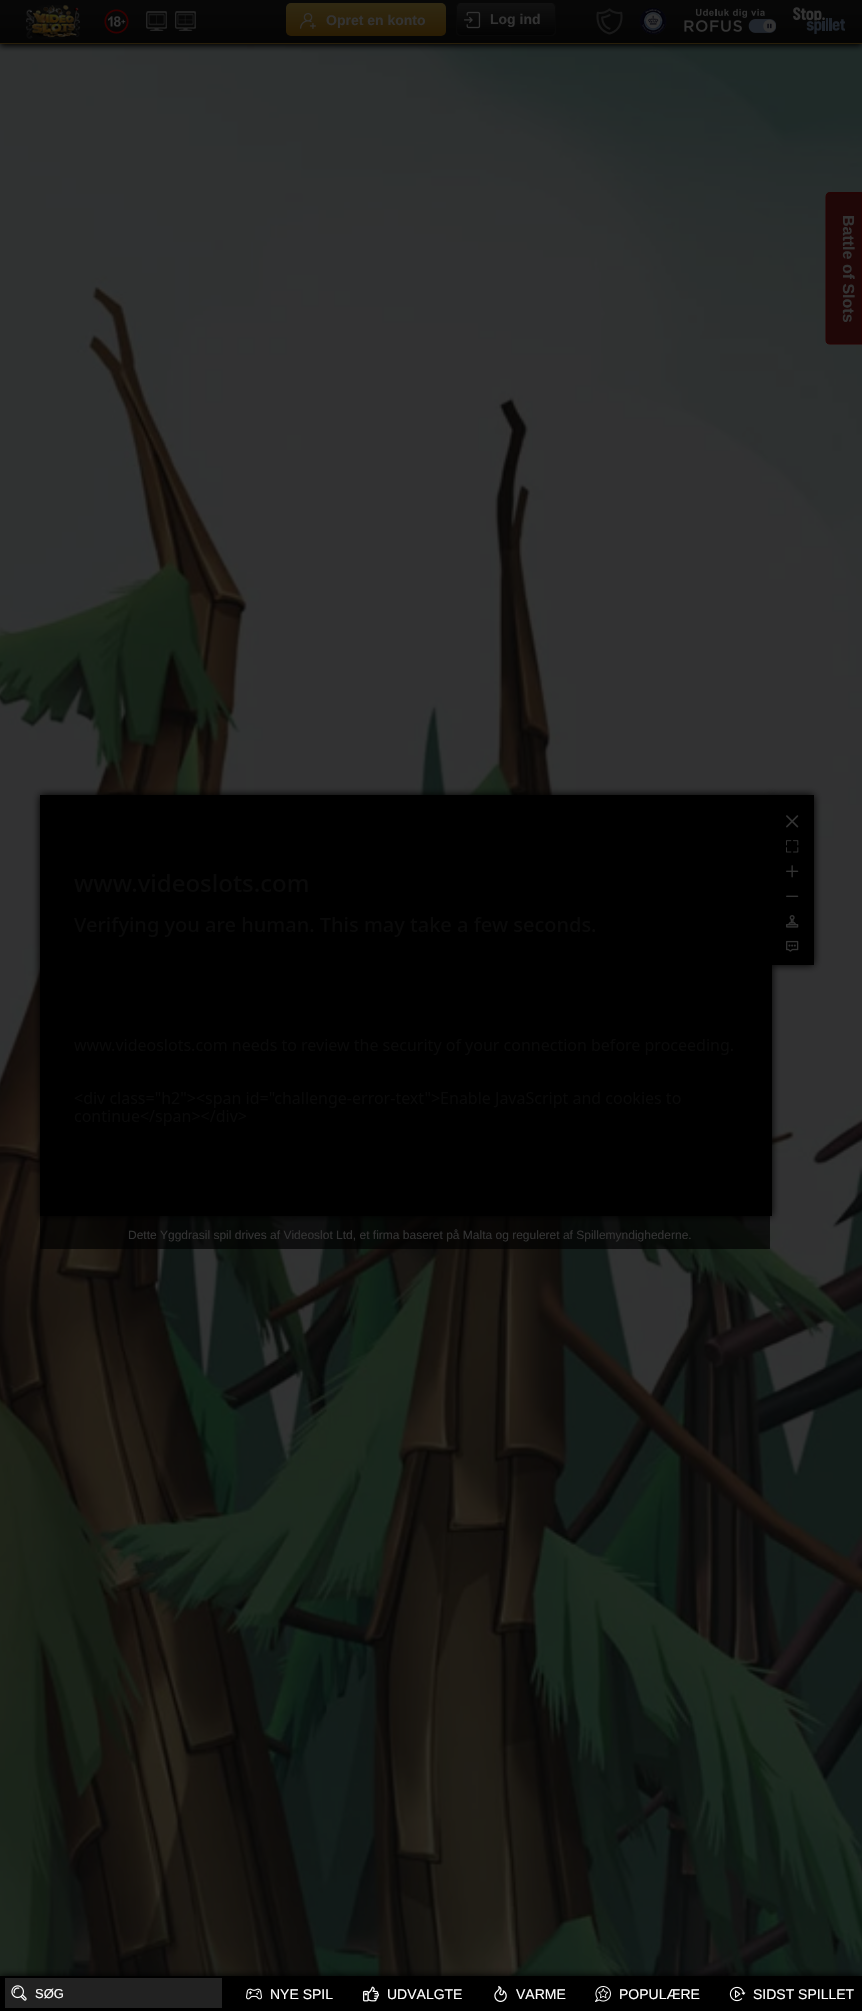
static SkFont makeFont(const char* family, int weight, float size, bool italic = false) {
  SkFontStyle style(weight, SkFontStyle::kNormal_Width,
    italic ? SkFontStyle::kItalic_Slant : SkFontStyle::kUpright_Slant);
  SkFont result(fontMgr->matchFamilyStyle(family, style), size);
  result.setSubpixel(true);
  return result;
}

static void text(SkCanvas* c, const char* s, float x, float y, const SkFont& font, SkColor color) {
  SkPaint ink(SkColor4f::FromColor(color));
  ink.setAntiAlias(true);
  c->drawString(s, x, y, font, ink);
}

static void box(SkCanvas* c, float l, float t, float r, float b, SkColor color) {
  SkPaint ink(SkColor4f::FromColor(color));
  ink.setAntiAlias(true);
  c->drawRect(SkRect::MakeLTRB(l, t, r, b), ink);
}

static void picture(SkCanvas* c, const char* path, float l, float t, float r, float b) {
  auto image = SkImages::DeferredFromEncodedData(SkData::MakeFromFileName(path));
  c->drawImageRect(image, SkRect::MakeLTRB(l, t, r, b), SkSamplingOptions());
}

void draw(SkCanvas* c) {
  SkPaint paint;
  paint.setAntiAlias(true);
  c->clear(0xffffffff);
  picture(c, "img_12.png", 0, 44, 862, 1976);
  paint.setColor(0xff000000);
  paint.setMaskFilter(SkMaskFilter::MakeBlur(kNormal_SkBlurStyle, 3));
  c->drawRect(SkRect::MakeLTRB(0, 2, 862, 46), paint);
  paint.setMaskFilter(nullptr);
  picture(c, "img_01.png", 0, 0, 862, 43);
  box(c, 0, 43, 862, 44, 0xff291f0a);
  picture(c, "img_02.png", 26, 5, 80, 39);
  picture(c, "img_03.png", 104, 9, 129, 34);
  picture(c, "img_04.png", 146, 11, 167, 31);
  picture(c, "img_05.png", 175, 11, 196, 31);
  {
    const SkColor colors[] = {0xff302913, 0xff2a1c03};
    const float stops[] = {0, 1};
    const SkPoint ends[] = {{366, 3}, {366, 36}};
    paint.setShader(SkGradientShader::MakeLinear(ends, colors, stops, 2, SkTileMode::kClamp));
    paint.setAlpha(255);
  }
  c->drawRoundRect(SkRect::MakeLTRB(286, 3, 446, 36), 5, 5, paint);
  picture(c, "img_06.png", 300, 13, 316, 29);
  SkFont face1 = makeFont("Liberation Sans", 700, 14);
  text(c, "Opret en konto", 326, 25, face1, 0xff333333);
  c->save();
  c->clipPath(SkPathBuilder().moveTo(461, 3).lineTo(551, 3).cubicTo(554, 3, 556, 5, 556, 8).lineTo(556, 31).cubicTo(556, 34, 554, 36, 551, 36).lineTo(461, 36).cubicTo(458, 36, 456, 34, 456, 31).lineTo(456, 8).cubicTo(456, 5, 458, 3, 461, 3).close().detach(), true);
  {
    const SkColor colors[] = {0xff111111, 0xff030303};
    const float stops[] = {0, 1};
    const SkPoint ends[] = {{506, 3}, {506, 35}};
    paint.setShader(SkGradientShader::MakeLinear(ends, colors, stops, 2, SkTileMode::kClamp));
    paint.setAlpha(255);
  }
  c->drawPath(SkPathBuilder().moveTo(461, 3).lineTo(551, 3).cubicTo(554, 3, 556, 5, 556, 8).lineTo(556, 35).lineTo(456, 35).lineTo(456, 8).cubicTo(456, 5, 458, 3, 461, 3).close().detach(), paint);
  c->restore();
  paint.setShader(nullptr);
  paint.setColor(0xff080808);
  c->drawPath(SkPathBuilder(SkPathFillType::kEvenOdd).moveTo(461, 3).lineTo(551, 3).cubicTo(554, 3, 556, 5, 556, 8).lineTo(556, 31).cubicTo(556, 34, 554, 36, 551, 36).lineTo(461, 36).cubicTo(458, 36, 456, 34, 456, 31).lineTo(456, 8).cubicTo(456, 5, 458, 3, 461, 3).close().moveTo(461, 3).lineTo(551, 3).cubicTo(553, 3, 555, 5, 555, 8).lineTo(555, 31).cubicTo(555, 33, 553, 35, 551, 35).lineTo(461, 35).cubicTo(459, 35, 457, 33, 457, 31).lineTo(457, 8).cubicTo(457, 5, 459, 3, 461, 3).close().detach(), paint);
  picture(c, "img_07.png", 464, 11, 481, 29);
  text(c, "Log ind", 490, 24, face1, 0xff333333);
  picture(c, "img_08.png", 596, 8, 623, 35);
  picture(c, "img_09.png", 639, 8, 667, 35);
  picture(c, "img_10.png", 684, 8, 776, 33);
  picture(c, "img_11.png", 793, 7, 845, 34);
  paint.setColor(0xff1f0707);
  c->drawPath(SkPathBuilder().moveTo(862, 192).lineTo(862, 344).lineTo(830, 344).cubicTo(827, 344, 826, 343, 826, 340).lineTo(826, 196).cubicTo(826, 194, 827, 192, 830, 192).close().detach(), paint);
  paint.setStyle(SkPaint::kStroke_Style);
  paint.setStrokeWidth(1);
  paint.setColor(0xff290000);
  c->drawPath(SkPathBuilder().moveTo(862, 193).lineTo(862, 344).lineTo(829.5f, 344).cubicTo(827.5f, 344, 826, 342.5f, 826, 340.5f).lineTo(826, 196.5f).cubicTo(826, 194.5f, 827.5f, 193, 829.5f, 193).close().detach(), paint);
  SkFont face2 = makeFont("Liberation Sans", 700, 16);
  c->save();
  c->rotate(90, 843, 215);
  text(c, "Battle of Slots", 843, 215, face2, 0xff333333);
  c->restore();
  box(c, 40, 1216, 770, 1249, 0xb3000000);
  SkFont face3 = makeFont("Liberation Sans", 400, 12);
  text(c, "Dette Yggdrasil spil drives af Videoslot Ltd, et firma baseret på Malta og reguleret af Spillemyndighederne.", 128, 1239, face3, 0xff333333);
  paint.setStyle(SkPaint::kFill_Style);
  paint.setColor(0xff000000);
  paint.setMaskFilter(SkMaskFilter::MakeBlur(kNormal_SkBlurStyle, 4));
  c->drawRect(SkRect::MakeLTRB(0, 1976, 862, 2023), paint);
  paint.setMaskFilter(nullptr);
  box(c, 0, 1976, 862, 2011, 0xff000000);
  box(c, 5, 1978, 222, 2008, 0xff222222);
  picture(c, "img_13.png", 11, 1985, 27, 2001);
  SkFont face4 = makeFont("Liberation Sans", 400, 13);
  text(c, "SØG", 35, 1998, face4, 0xffffffff);
  picture(c, "img_14.png", 246, 1988, 262, 2000);
  SkFont face5 = makeFont("Liberation Sans", 400, 14);
  text(c, "NYE SPIL", 270, 1999, face5, 0xffffffff);
  picture(c, "img_15.png", 363, 1986, 379, 2002);
  text(c, "UDVALGTE", 387, 1999, face5, 0xffffffff);
  picture(c, "img_16.png", 494, 1986, 507, 2002);
  text(c, "VARME", 516, 1999, face5, 0xffffffff);
  picture(c, "img_17.png", 595, 1986, 611, 2002);
  text(c, "POPULÆRE", 619, 1999, face5, 0xffffffff);
  picture(c, "img_18.png", 729, 1986, 746, 2002);
  text(c, "SIDST SPILLET", 753, 1999, face5, 0xffffffff);
  paint.setMaskFilter(SkMaskFilter::MakeBlur(kNormal_SkBlurStyle, 4));
  c->drawRect(SkRect::MakeLTRB(40, 795, 772, 1216), paint);
  paint.setMaskFilter(nullptr);
  paint.setStyle(SkPaint::kStroke_Style);
  paint.setStrokeWidth(10);
  c->drawRect(SkRect::MakeLTRB(45, 800, 767, 1211), paint);
  picture(c, "img_19.png", 74, 874, 733, 1126);
  paint.setStyle(SkPaint::kFill_Style);
  paint.setMaskFilter(SkMaskFilter::MakeBlur(kNormal_SkBlurStyle, 4));
  c->drawRect(SkRect::MakeLTRB(770, 795, 814, 965), paint);
  paint.setMaskFilter(nullptr);
  box(c, 772, 795, 814, 965, 0xff000000);
  picture(c, "img_20.png", 786, 815, 799, 828);
  picture(c, "img_21.png", 786, 840, 799, 853);
  picture(c, "img_22.png", 786, 865, 799, 878);
  picture(c, "img_23.png", 786, 895, 799, 897);
  picture(c, "img_24.png", 786, 915, 799, 928);
  picture(c, "img_25.png", 786, 940, 799, 952);
}
